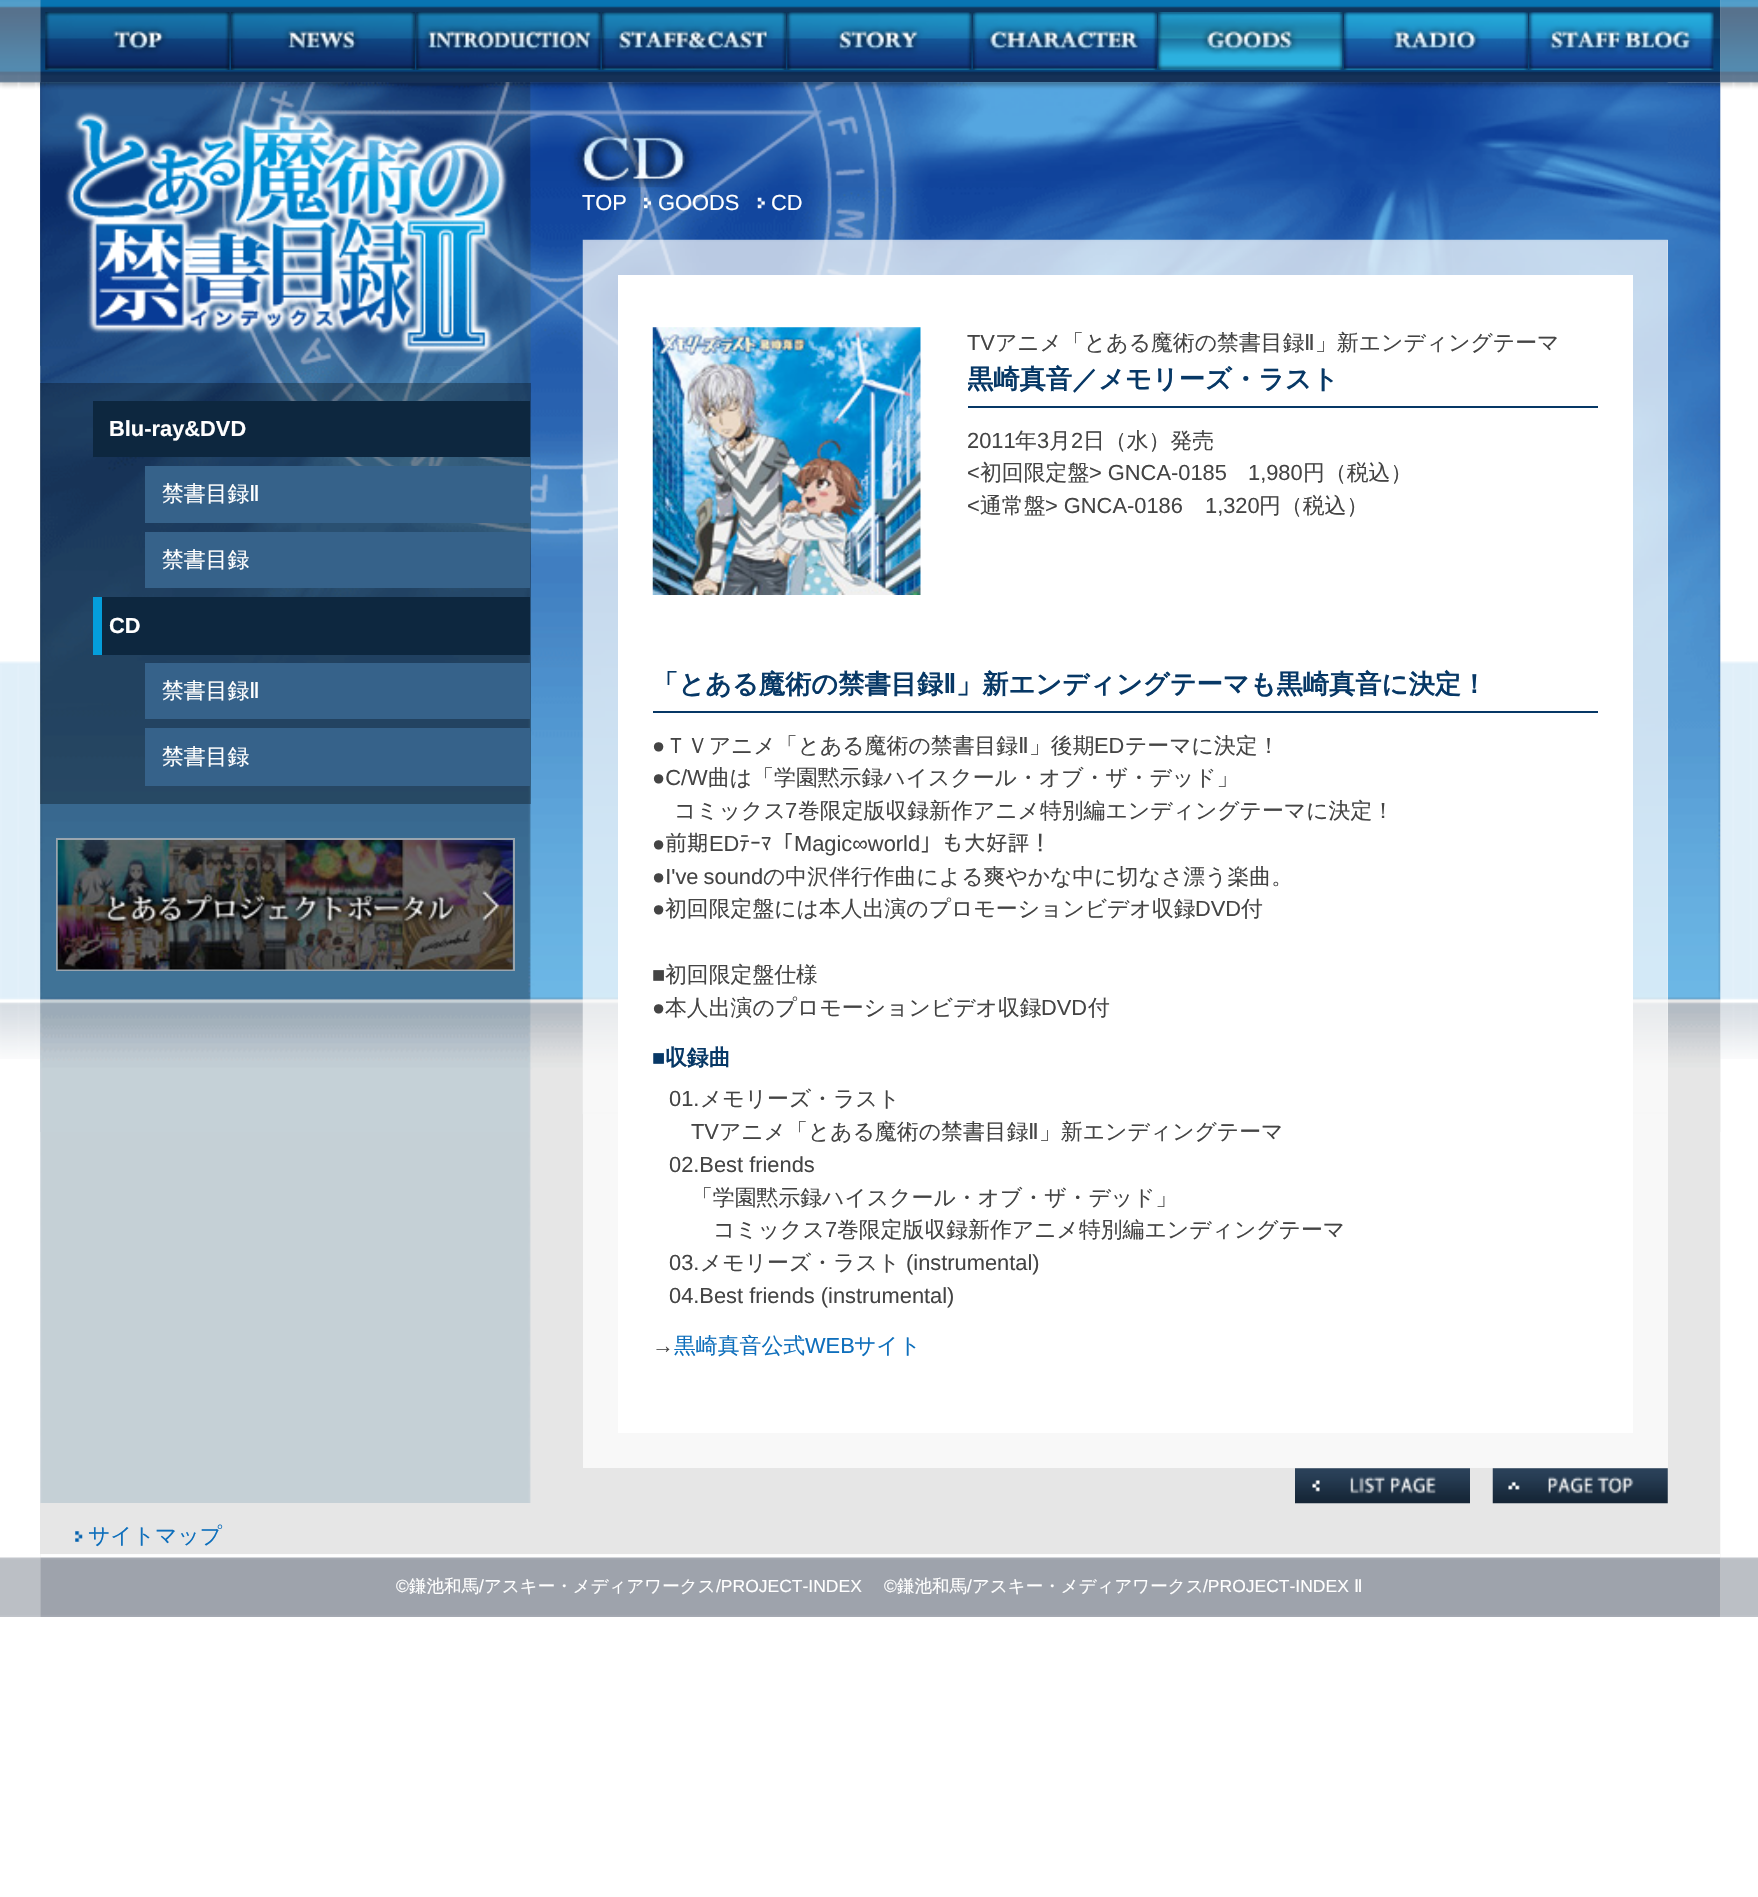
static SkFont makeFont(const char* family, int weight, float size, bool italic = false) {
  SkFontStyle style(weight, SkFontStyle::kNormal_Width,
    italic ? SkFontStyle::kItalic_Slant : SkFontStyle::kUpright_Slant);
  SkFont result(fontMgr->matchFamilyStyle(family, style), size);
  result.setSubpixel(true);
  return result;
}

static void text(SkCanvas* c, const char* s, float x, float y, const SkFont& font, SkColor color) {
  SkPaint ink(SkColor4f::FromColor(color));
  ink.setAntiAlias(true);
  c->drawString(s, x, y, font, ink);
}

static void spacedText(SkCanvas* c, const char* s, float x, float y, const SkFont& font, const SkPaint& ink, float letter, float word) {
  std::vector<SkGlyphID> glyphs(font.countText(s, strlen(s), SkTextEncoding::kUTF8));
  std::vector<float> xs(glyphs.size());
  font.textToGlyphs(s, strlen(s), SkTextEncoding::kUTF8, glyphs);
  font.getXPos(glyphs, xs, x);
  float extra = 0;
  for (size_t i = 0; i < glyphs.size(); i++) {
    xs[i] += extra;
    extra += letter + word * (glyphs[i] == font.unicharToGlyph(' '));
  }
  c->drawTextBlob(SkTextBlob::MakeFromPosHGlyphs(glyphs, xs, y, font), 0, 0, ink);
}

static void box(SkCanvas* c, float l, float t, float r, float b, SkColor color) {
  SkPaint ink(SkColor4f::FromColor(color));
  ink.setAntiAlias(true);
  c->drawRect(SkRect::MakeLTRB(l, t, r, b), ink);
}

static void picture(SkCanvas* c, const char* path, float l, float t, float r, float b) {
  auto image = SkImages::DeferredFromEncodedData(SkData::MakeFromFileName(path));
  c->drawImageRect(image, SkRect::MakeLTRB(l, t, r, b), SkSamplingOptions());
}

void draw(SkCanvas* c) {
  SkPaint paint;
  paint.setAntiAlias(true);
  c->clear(0xffffffff);
  picture(c, "img_01.png", 0, 0, 1758, 1059);
  picture(c, "img_02.png", 0, 1557, 1758, 1617);
  picture(c, "img_03.png", 40, 0, 1721, 1617);
  picture(c, "img_04.png", 40, 0, 1721, 83);
  picture(c, "img_05.png", 45, 12, 230, 70);
  picture(c, "img_06.png", 45, 12, 230, 70);
  picture(c, "img_07.png", 231, 12, 415, 70);
  picture(c, "img_08.png", 231, 12, 415, 69);
  picture(c, "img_09.png", 416, 12, 601, 70);
  picture(c, "img_10.png", 416, 12, 601, 70);
  picture(c, "img_11.png", 602, 12, 786, 70);
  picture(c, "img_12.png", 602, 13, 786, 69);
  picture(c, "img_13.png", 787, 12, 972, 70);
  picture(c, "img_14.png", 787, 12, 972, 70);
  picture(c, "img_15.png", 973, 12, 1157, 70);
  picture(c, "img_16.png", 973, 12, 1157, 69);
  picture(c, "img_17.png", 1158, 12, 1343, 70);
  picture(c, "img_18.png", 1158, 12, 1343, 69);
  picture(c, "img_19.png", 1344, 12, 1528, 70);
  picture(c, "img_20.png", 1344, 12, 1528, 70);
  picture(c, "img_21.png", 1529, 12, 1714, 70);
  picture(c, "img_22.png", 1529, 12, 1714, 70);
  picture(c, "img_23.png", 40, 82, 1721, 1132);
  picture(c, "img_26.png", 530, 82, 1668, 188);
  picture(c, "img_24.png", 40, 82, 531, 366);
  box(c, 40, 383, 531, 804, 0x4d000000);
  box(c, 93, 401, 530, 457, 0xff0d273f);
  SkFont face1 = makeFont("Liberation Sans", 700, 21.85f);
  text(c, "Blu-ray&DVD", 109, 436, face1, 0xffffffff);
  box(c, 145, 466, 530, 523, 0xff36628a);
  SkFont face2 = makeFont("WenQuanYi Zen Hei", 500, 21.85f);
  text(c, "禁書目録", 162, 501, face2, 0xffffffff);
  SkFont face3 = makeFont("DejaVu Sans", 400, 21.85f);
  text(c, "Ⅱ", 249, 501, face3, 0xffffffff);
  box(c, 145, 532, 530, 588, 0xff36628a);
  text(c, "禁書目録", 162, 567, face2, 0xffffffff);
  box(c, 102, 597, 530, 655, 0xff0d273f);
  box(c, 93, 597, 102, 655, 0xff049edc);
  text(c, "CD", 109, 633, face1, 0xffffffff);
  box(c, 145, 663, 530, 719, 0xff36628a);
  text(c, "禁書目録", 162, 698, face2, 0xffffffff);
  text(c, "Ⅱ", 249, 698, face3, 0xffffffff);
  box(c, 145, 728, 530, 786, 0xff36628a);
  text(c, "禁書目録", 162, 764, face2, 0xffffffff);
  paint.setStyle(SkPaint::kStroke_Style);
  paint.setStrokeWidth(2);
  paint.setColor(0xff9aa5af);
  c->drawRect(SkRect::MakeLTRB(57, 839, 514, 970), paint);
  picture(c, "img_25.png", 57, 840, 513, 970);
  SkFont face4 = makeFont("Liberation Sans", 400, 21.85f);
  text(c, "TOP", 582, 210, face4, 0xffffffff);
  picture(c, "img_27.png", 644, 197, 651, 209);
  text(c, "GOODS", 658, 210, face4, 0xffffffff);
  picture(c, "img_28.png", 757, 197, 765, 209);
  text(c, "CD", 771, 210, face4, 0xffffffff);
  box(c, 583, 240, 1668, 1468, 0xfff8f8f8);
  picture(c, "img_29.png", 582, 239, 1668, 1114);
  box(c, 618, 275, 1633, 1433, 0xffffffff);
  picture(c, "img_30.png", 652, 327, 921, 595);
  text(c, "TV", 967, 350, face4, 0xff444444);
  text(c, "アニメ「とある魔術の禁書目録", 995, 350, face2, 0xff444444);
  text(c, "Ⅱ", 1304, 350, face3, 0xff444444);
  text(c, "」新エンディングテーマ", 1315, 350, face2, 0xff444444);
  box(c, 968, 406, 1598, 408, 0xff073866);
  c->save();
  c->clipRect(SkRect::MakeLTRB(968, 361, 1598, 406));
  SkFont face5 = makeFont("WenQuanYi Zen Hei", 700, 26.25f);
  text(c, "黒崎真音／メモリーズ・ラスト", 967, 388, face5, 0xff073866);
  c->restore();
  text(c, "2011", 967, 448, face4, 0xff444444);
  text(c, "年", 1015, 448, face2, 0xff444444);
  text(c, "3", 1037, 448, face4, 0xff444444);
  text(c, "月", 1049, 448, face2, 0xff444444);
  text(c, "2", 1071, 448, face4, 0xff444444);
  text(c, "日（水）発売", 1083, 448, face2, 0xff444444);
  text(c, "<", 967, 480, face4, 0xff444444);
  text(c, "初回限定盤", 980, 480, face2, 0xff444444);
  text(c, "> GNCA-0185", 1089, 480, face4, 0xff444444);
  text(c, "1,980", 1248, 480, face4, 0xff444444);
  text(c, "円（税込）", 1303, 480, face2, 0xff444444);
  text(c, "<", 967, 513, face4, 0xff444444);
  text(c, "通常盤", 980, 513, face2, 0xff444444);
  text(c, "> GNCA-0186", 1045, 513, face4, 0xff444444);
  text(c, "1,320", 1205, 513, face4, 0xff444444);
  text(c, "円（税込）", 1259, 513, face2, 0xff444444);
  box(c, 653, 711, 1598, 713, 0xff073866);
  text(c, "「とある魔術の禁書目録", 652, 693, face5, 0xff073866);
  SkFont face6 = makeFont("DejaVu Sans", 700, 26.25f);
  text(c, "Ⅱ", 943, 693, face6, 0xff073866);
  text(c, "」新エンディングテーマも黒崎真音に決定！", 956, 693, face5, 0xff073866);
  text(c, "●", 652, 753, face4, 0xff444444);
  text(c, "ＴＶアニメ「とある魔術の禁書目録", 665, 753, face2, 0xff444444);
  text(c, "Ⅱ", 1018, 753, face3, 0xff444444);
  text(c, "」後期", 1029, 753, face2, 0xff444444);
  text(c, "ED", 1094, 753, face4, 0xff444444);
  text(c, "テーマに決定！", 1125, 753, face2, 0xff444444);
  text(c, "●C/W", 652, 785, face4, 0xff444444);
  text(c, "曲は「学園黙示録ハイスクール・オブ・ザ・デッド」", 708, 785, face2, 0xff444444);
  text(c, "コミックス", 674, 818, face2, 0xff444444);
  text(c, "7", 785, 818, face4, 0xff444444);
  text(c, "巻限定版収録新作アニメ特別編エンディングテーマに決定！", 798, 818, face2, 0xff444444);
  text(c, "●", 652, 851, face4, 0xff444444);
  SkFont face7 = makeFont("IPAGothic", 400, 21.85f);
  text(c, "前期", 665, 851, face7, 0xff444444);
  text(c, "ED", 709, 851, face4, 0xff444444);
  text(c, "ﾃｰﾏ「", 739, 851, face7, 0xff444444);
  text(c, "Magic∞world", 794, 851, face4, 0xff444444);
  text(c, "」も大好評！", 920, 851, face7, 0xff444444);
  paint.setStyle(SkPaint::kFill_Style);
  paint.setColor(0xff444444);
  spacedText(c, "●I've sound", 652, 884, face4, paint, 0, -1);
  text(c, "の中沢伴行作曲による爽やかな中に切なさ漂う楽曲。", 763, 884, face2, 0xff444444);
  text(c, "●", 652, 916, face4, 0xff444444);
  text(c, "初回限定盤には本人出演のプロモーションビデオ収録", 665, 916, face2, 0xff444444);
  text(c, "DVD", 1195, 916, face4, 0xff444444);
  text(c, "付", 1241, 916, face2, 0xff444444);
  text(c, "■", 652, 982, face4, 0xff444444);
  text(c, "初回限定盤仕様", 665, 982, face2, 0xff444444);
  text(c, "●", 652, 1015, face4, 0xff444444);
  text(c, "本人出演のプロモーションビデオ収録", 665, 1015, face2, 0xff444444);
  text(c, "DVD", 1041, 1015, face4, 0xff444444);
  text(c, "付", 1088, 1015, face2, 0xff444444);
  text(c, "■", 652, 1065, face1, 0xff073866);
  SkFont face8 = makeFont("WenQuanYi Zen Hei", 700, 21.85f);
  text(c, "収録曲", 665, 1065, face8, 0xff073866);
  text(c, "01.", 669, 1106, face4, 0xff444444);
  text(c, "メモリーズ・ラスト", 700, 1106, face2, 0xff444444);
  text(c, "TV", 691, 1139, face4, 0xff444444);
  text(c, "アニメ「とある魔術の禁書目録", 719, 1139, face2, 0xff444444);
  text(c, "Ⅱ", 1028, 1139, face3, 0xff444444);
  text(c, "」新エンディングテーマ", 1039, 1139, face2, 0xff444444);
  text(c, "02.Best friends", 669, 1172, face4, 0xff444444);
  text(c, "「学園黙示録ハイスクール・オブ・ザ・デッド」", 691, 1205, face2, 0xff444444);
  text(c, "コミックス", 713, 1237, face2, 0xff444444);
  text(c, "7", 825, 1237, face4, 0xff444444);
  text(c, "巻限定版収録新作アニメ特別編エンディングテーマ", 837, 1237, face2, 0xff444444);
  text(c, "03.", 669, 1270, face4, 0xff444444);
  text(c, "メモリーズ・ラスト", 700, 1270, face2, 0xff444444);
  text(c, "(instrumental)", 906, 1270, face4, 0xff444444);
  text(c, "04.Best friends (instrumental)", 669, 1303, face4, 0xff444444);
  text(c, "→", 652, 1353, face4, 0xff444444);
  text(c, "黒崎真音公式", 674, 1353, face2, 0xff0e6fbc);
  text(c, "WEB", 805, 1353, face4, 0xff0e6fbc);
  text(c, "サイト", 854, 1353, face2, 0xff0e6fbc);
  picture(c, "img_31.png", 1295, 1468, 1470, 1504);
  picture(c, "img_32.png", 1492, 1468, 1668, 1504);
  box(c, 40, 1503, 531, 1617, 0xffe6e6e6);
  picture(c, "img_33.png", 75, 1531, 83, 1542);
  text(c, "サイトマップ", 88, 1543, face2, 0xff0e6fbc);
  picture(c, "img_34.png", 40, 1554, 1721, 1617);
  SkFont face9 = makeFont("Liberation Sans", 400, 17.5f);
  text(c, "©", 396, 1592, face9, 0xffffffff);
  SkFont face10 = makeFont("WenQuanYi Zen Hei", 500, 17.5f);
  text(c, "鎌池和馬", 409, 1592, face10, 0xffffffff);
  text(c, "/", 479, 1592, face9, 0xffffffff);
  text(c, "アスキー・メディアワークス", 484, 1592, face10, 0xffffffff);
  text(c, "/PROJECT-INDEX", 716, 1592, face9, 0xffffffff);
  text(c, "©", 884, 1592, face9, 0xffffffff);
  text(c, "鎌池和馬", 897, 1592, face10, 0xffffffff);
  text(c, "/", 967, 1592, face9, 0xffffffff);
  text(c, "アスキー・メディアワークス", 972, 1592, face10, 0xffffffff);
  text(c, "/PROJECT-INDEX", 1203, 1592, face9, 0xffffffff);
  SkFont face11 = makeFont("DejaVu Sans", 400, 17.5f);
  text(c, "Ⅱ", 1354, 1592, face11, 0xffffffff);
}
